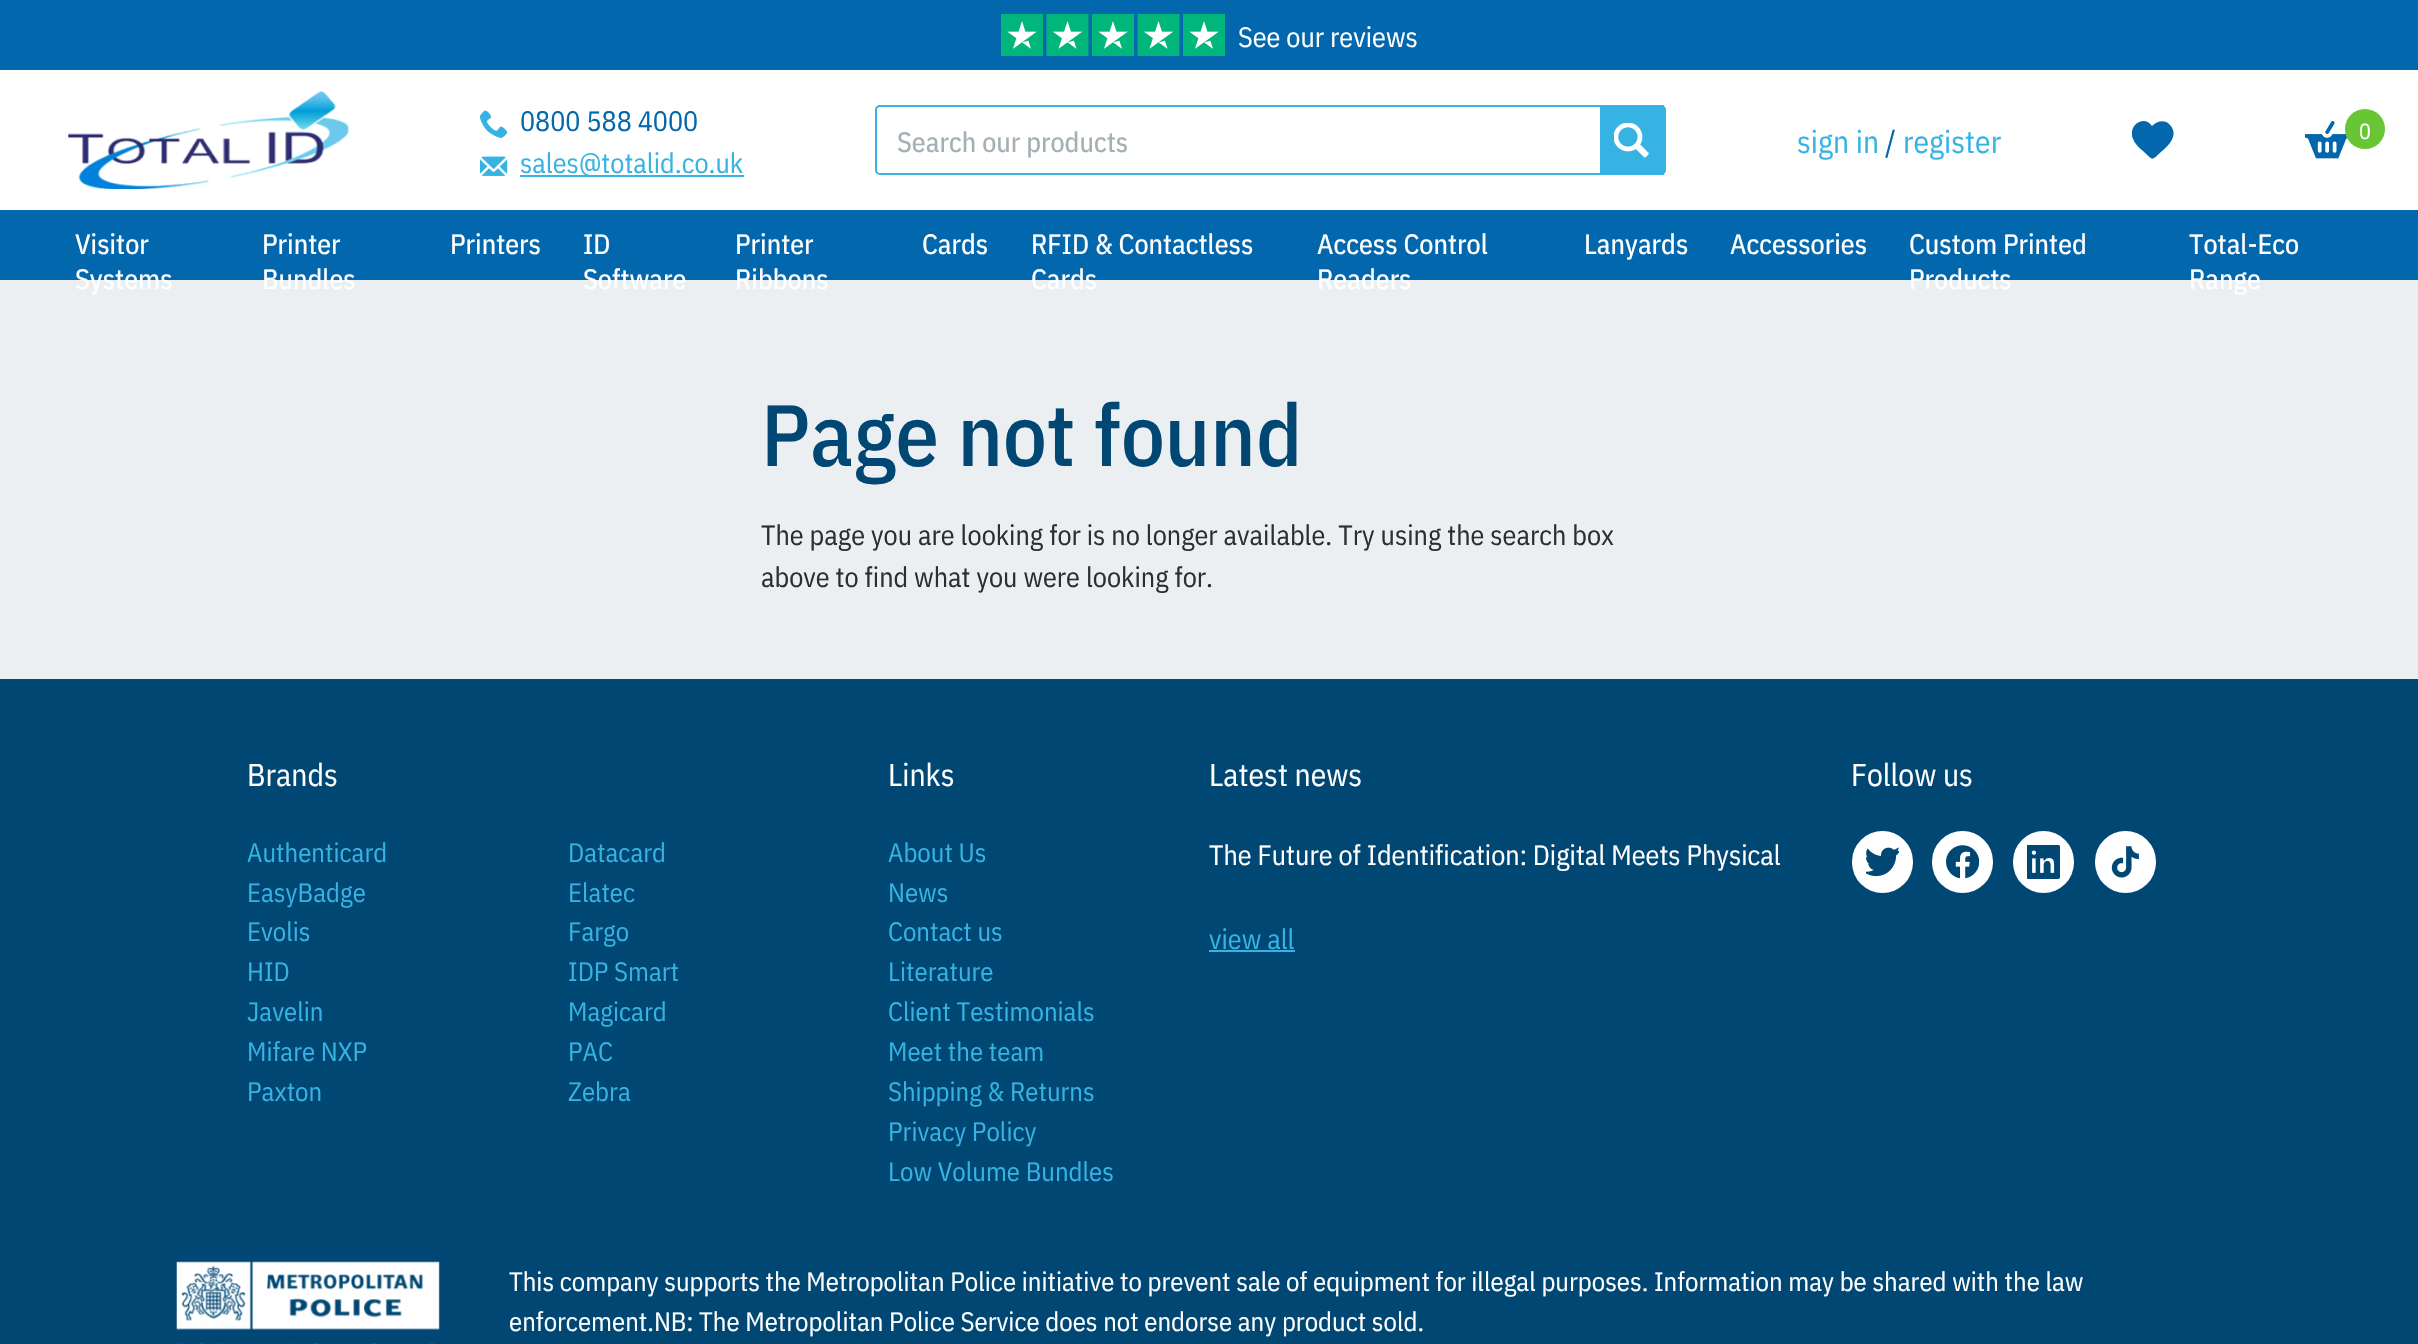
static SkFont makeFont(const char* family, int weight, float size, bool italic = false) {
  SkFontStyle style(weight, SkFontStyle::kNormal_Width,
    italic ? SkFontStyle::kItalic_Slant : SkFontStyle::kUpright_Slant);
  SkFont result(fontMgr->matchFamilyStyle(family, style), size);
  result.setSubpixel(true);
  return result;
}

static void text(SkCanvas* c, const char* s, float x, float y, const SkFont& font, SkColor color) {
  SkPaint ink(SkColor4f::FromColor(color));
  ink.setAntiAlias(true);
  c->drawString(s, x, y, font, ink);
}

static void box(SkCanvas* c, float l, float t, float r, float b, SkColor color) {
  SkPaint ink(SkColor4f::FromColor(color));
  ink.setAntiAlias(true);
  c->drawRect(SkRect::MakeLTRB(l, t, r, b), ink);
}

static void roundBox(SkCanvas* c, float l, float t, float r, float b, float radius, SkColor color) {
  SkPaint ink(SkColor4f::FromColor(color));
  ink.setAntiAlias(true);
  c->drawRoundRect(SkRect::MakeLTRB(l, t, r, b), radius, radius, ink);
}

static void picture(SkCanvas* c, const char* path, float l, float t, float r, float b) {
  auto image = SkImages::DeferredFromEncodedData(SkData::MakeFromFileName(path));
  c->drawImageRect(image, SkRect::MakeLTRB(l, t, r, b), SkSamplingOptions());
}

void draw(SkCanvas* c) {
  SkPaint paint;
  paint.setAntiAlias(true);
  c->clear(0xffebeff2);
  box(c, 0, 70, 2418, 210, 0xffffffff);
  box(c, 0, 0, 2418, 70, 0xff0267ac);
  picture(c, "img_01.png", 1001, 14, 1225, 56);
  SkFont face1 = makeFont("IBM Plex Sans Condensed", 400, 28);
  text(c, "See our reviews", 1238, 47, face1, 0xffffffff);
  picture(c, "img_02.png", 68, 91, 349, 189);
  picture(c, "img_03.png", 480, 110, 508, 138);
  text(c, "0800 588 4000", 520, 131, face1, 0xff0267ac);
  picture(c, "img_04.png", 480, 156, 508, 176);
  box(c, 520, 175, 744, 177, 0xff36b3e3);
  text(c, "sales@totalid.co.uk", 520, 173, face1, 0xff36b3e3);
  paint.setStyle(SkPaint::kStroke_Style);
  paint.setStrokeWidth(2);
  paint.setColor(0xff36b3e3);
  c->drawRoundRect(SkRect::MakeLTRB(876, 106, 1665, 174), 4, 4, paint);
  SkFont face2 = makeFont("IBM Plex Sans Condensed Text", 500, 28);
  text(c, "Search our products", 897, 152, face2, 0xffa4b0b4);
  box(c, 1600, 105, 1664, 175, 0xff36b3e3);
  picture(c, "img_05.png", 1614, 123, 1649, 158);
  SkFont face3 = makeFont("IBM Plex Sans Condensed", 400, 31.5f);
  text(c, "sign in", 1797, 153, face3, 0xff36b3e3);
  text(c, "/", 1885, 153, face3, 0xff0267ac);
  text(c, "register", 1903, 153, face3, 0xff36b3e3);
  c->save();
  c->clipRect(SkRect::MakeLTRB(2132, 119, 2174, 161));
  paint.setStyle(SkPaint::kFill_Style);
  paint.setColor(0xff0267ac);
  c->drawPath(SkPathBuilder().moveTo(2170, 125).cubicTo(2165, 119, 2157, 121, 2152, 126).cubicTo(2144, 114, 2127, 126, 2133, 139).cubicTo(2135, 144, 2139, 148, 2143, 151).cubicTo(2154, 161, 2151, 161, 2162, 151).cubicTo(2169, 145, 2179, 135, 2170, 125).close().detach(), paint);
  c->restore();
  picture(c, "img_06.png", 2305, 121, 2348, 159);
  paint.setColor(0xff68c635);
  c->drawCircle(2365, 129, 20, paint);
  SkFont face4 = makeFont("IBM Plex Sans Condensed", 400, 22);
  text(c, "0", 2359, 139, face4, 0xffffffff);
  box(c, 0, 210, 2418, 280, 0xff0267ac);
  text(c, "Visitor", 75, 254, face2, 0xffffffff);
  text(c, "Systems", 75, 289, face2, 0xffffffff);
  text(c, "Printer", 262, 254, face2, 0xffffffff);
  text(c, "Bundles", 262, 289, face2, 0xffffffff);
  text(c, "Printers", 450, 254, face2, 0xffffffff);
  text(c, "ID", 583, 254, face2, 0xffffffff);
  text(c, "Software", 583, 289, face2, 0xffffffff);
  text(c, "Printer", 735, 254, face2, 0xffffffff);
  text(c, "Ribbons", 735, 289, face2, 0xffffffff);
  text(c, "Cards", 922, 254, face2, 0xffffffff);
  text(c, "RFID & Contactless", 1031, 254, face2, 0xffffffff);
  text(c, "Cards", 1031, 289, face2, 0xffffffff);
  text(c, "Access Control", 1317, 254, face2, 0xffffffff);
  text(c, "Readers", 1317, 289, face2, 0xffffffff);
  text(c, "Lanyards", 1584, 254, face2, 0xffffffff);
  text(c, "Accessories", 1730, 254, face2, 0xffffffff);
  text(c, "Custom Printed", 1909, 254, face2, 0xffffffff);
  text(c, "Products", 1909, 289, face2, 0xffffffff);
  text(c, "Total-Eco", 2189, 254, face2, 0xffffffff);
  text(c, "Range", 2189, 289, face2, 0xffffffff);
  SkFont face5 = makeFont("IBM Plex Sans Condensed", 500, 86.75f);
  text(c, "Page not found", 761, 466, face5, 0xff004774);
  text(c, "The page you are looking for is no longer available. Try using the search box", 761, 545, face1, 0xff2e2e2f);
  text(c, "above to find what you were looking for.", 761, 587, face1, 0xff2e2e2f);
  box(c, 0, 679, 2418, 1344, 0xff004774);
  text(c, "Brands", 247, 786, face3, 0xffffffff);
  SkFont face6 = makeFont("IBM Plex Sans Condensed", 400, 26.6f);
  text(c, "Authenticard", 247, 862, face6, 0xff36b3e3);
  text(c, "Datacard", 568, 862, face6, 0xff36b3e3);
  text(c, "EasyBadge", 247, 902, face6, 0xff36b3e3);
  text(c, "Elatec", 568, 902, face6, 0xff36b3e3);
  text(c, "Evolis", 247, 941, face6, 0xff36b3e3);
  text(c, "Fargo", 568, 941, face6, 0xff36b3e3);
  text(c, "HID", 247, 981, face6, 0xff36b3e3);
  text(c, "IDP Smart", 568, 981, face6, 0xff36b3e3);
  text(c, "Javelin", 247, 1021, face6, 0xff36b3e3);
  text(c, "Magicard", 568, 1021, face6, 0xff36b3e3);
  text(c, "Mifare NXP", 247, 1061, face6, 0xff36b3e3);
  text(c, "PAC", 568, 1061, face6, 0xff36b3e3);
  text(c, "Paxton", 247, 1101, face6, 0xff36b3e3);
  text(c, "Zebra", 568, 1101, face6, 0xff36b3e3);
  text(c, "Links", 888, 786, face3, 0xffffffff);
  text(c, "About Us", 888, 862, face6, 0xff36b3e3);
  text(c, "News", 888, 902, face6, 0xff36b3e3);
  text(c, "Contact us", 888, 941, face6, 0xff36b3e3);
  text(c, "Literature", 888, 981, face6, 0xff36b3e3);
  text(c, "Client Testimonials", 888, 1021, face6, 0xff36b3e3);
  text(c, "Meet the team", 888, 1061, face6, 0xff36b3e3);
  text(c, "Shipping & Returns", 888, 1101, face6, 0xff36b3e3);
  text(c, "Privacy Policy", 888, 1141, face6, 0xff36b3e3);
  text(c, "Low Volume Bundles", 888, 1181, face6, 0xff36b3e3);
  text(c, "Latest news", 1209, 786, face3, 0xffffffff);
  text(c, "The Future of Identification: Digital Meets Physical", 1209, 865, face1, 0xffffffff);
  text(c, "view all", 1209, 949, face1, 0xff36b3e3);
  box(c, 1209, 950, 1295, 952, 0xff36b3e3);
  text(c, "Follow us", 1851, 786, face3, 0xffffffff);
  roundBox(c, 1852, 831, 1913, 893, 30.5f, 0xffffffff);
  picture(c, "img_07.png", 1866, 847, 1899, 877);
  roundBox(c, 1932, 831, 1993, 893, 30.5f, 0xffffffff);
  picture(c, "img_08.png", 1946, 845, 1979, 879);
  roundBox(c, 2013, 831, 2074, 893, 30.5f, 0xffffffff);
  picture(c, "img_09.png", 2027, 845, 2060, 879);
  roundBox(c, 2095, 831, 2156, 893, 30.5f, 0xffffffff);
  picture(c, "img_10.png", 2111, 846, 2139, 878);
  picture(c, "img_11.png", 176, 1261, 440, 1344);
  text(c, "This company supports the Metropolitan Police initiative to prevent sale of equipment for illegal purposes. Information may be shared with the law", 509, 1291, face6, 0xffffffff);
  text(c, "enforcement.NB: The Metropolitan Police Service does not endorse any product sold.", 509, 1331, face6, 0xffffffff);
}
